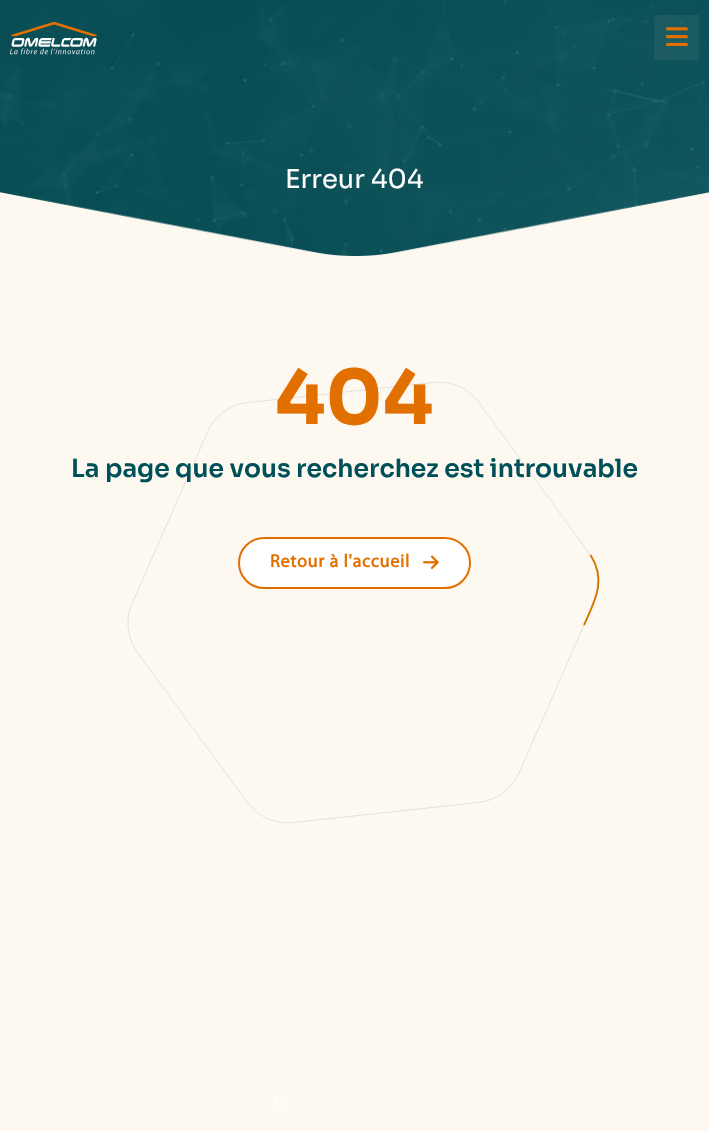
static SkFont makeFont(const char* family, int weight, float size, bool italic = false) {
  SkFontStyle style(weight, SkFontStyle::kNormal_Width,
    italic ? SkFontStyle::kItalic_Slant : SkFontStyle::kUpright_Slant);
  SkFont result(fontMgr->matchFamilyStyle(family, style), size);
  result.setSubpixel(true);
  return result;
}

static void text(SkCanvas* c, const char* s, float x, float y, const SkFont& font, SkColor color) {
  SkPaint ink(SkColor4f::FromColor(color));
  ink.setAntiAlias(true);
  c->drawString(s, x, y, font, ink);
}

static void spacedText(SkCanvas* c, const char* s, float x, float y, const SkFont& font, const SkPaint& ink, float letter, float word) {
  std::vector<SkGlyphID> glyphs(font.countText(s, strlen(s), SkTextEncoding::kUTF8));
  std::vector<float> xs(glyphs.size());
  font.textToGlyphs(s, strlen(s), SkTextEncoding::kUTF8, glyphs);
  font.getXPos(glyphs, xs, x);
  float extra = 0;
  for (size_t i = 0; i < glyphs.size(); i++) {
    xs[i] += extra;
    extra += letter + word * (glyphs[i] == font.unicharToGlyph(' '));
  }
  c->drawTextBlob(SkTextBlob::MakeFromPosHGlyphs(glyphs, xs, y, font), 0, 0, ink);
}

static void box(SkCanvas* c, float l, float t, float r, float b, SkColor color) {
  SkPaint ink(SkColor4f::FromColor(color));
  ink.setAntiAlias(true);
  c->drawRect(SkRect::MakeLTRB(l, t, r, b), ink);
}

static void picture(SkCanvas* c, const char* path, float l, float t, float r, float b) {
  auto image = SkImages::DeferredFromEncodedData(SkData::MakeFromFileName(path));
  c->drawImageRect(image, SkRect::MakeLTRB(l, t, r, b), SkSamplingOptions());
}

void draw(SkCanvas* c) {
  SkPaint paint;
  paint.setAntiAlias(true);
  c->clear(0xfffef9f0);
  picture(c, "img_03.png", 0, 0, 709, 256);
  picture(c, "img_01.png", 10, 22, 97, 55);
  box(c, 654, 15, 699, 60, 0x0dfef9f0);
  picture(c, "img_02.png", 666, 27, 688, 46);
  SkFont face1 = makeFont("Sora", 400, 26);
  text(c, "Erreur 404", 285, 188, face1, 0xffffffff);
  paint.setStyle(SkPaint::kStroke_Style);
  paint.setStrokeWidth(0.9f);
  paint.setColor(0xffdbdede);
  c->drawPath(SkPathBuilder().moveTo(293.5f, 822.5f).lineTo(478.5f, 802.5f).cubicTo(496.5f, 800.5f, 512, 789, 519, 773).lineTo(594, 602.5f).cubicTo(601.5f, 586.5f, 599.5f, 567.5f, 589, 553).lineTo(479, 402.5f).cubicTo(468.5f, 388, 451, 380.5f, 433, 382.5f).lineTo(248, 402.5f).cubicTo(230, 404.5f, 214.5f, 415.5f, 207.5f, 432).lineTo(132.5f, 602.5f).cubicTo(125, 618.5f, 127, 637.5f, 137, 652).lineTo(247, 802).cubicTo(258, 816.5f, 275.5f, 824.5f, 293.5f, 822.5f).close().detach(), paint);
  SkFont face2 = makeFont("Sora", 700, 75);
  text(c, "404", 275, 424, face2, 0xffe27000);
  paint.setStrokeWidth(1.9f);
  paint.setColor(0xffd47500);
  c->drawPath(SkPathBuilder().moveTo(584, 625).cubicTo(594.5f, 601.5f, 607, 580.5f, 590.5f, 555).detach(), paint);
  SkFont face3 = makeFont("Sora", 600, 25);
  text(c, "La page que vous recherchez est introuvable", 71, 477, face3, 0xff005059);
  paint.setStyle(SkPaint::kFill_Style);
  paint.setColor(0xffffffff);
  c->drawRoundRect(SkRect::MakeLTRB(239, 538, 470, 588), 25, 25, paint);
  paint.setStyle(SkPaint::kStroke_Style);
  paint.setStrokeWidth(2);
  paint.setColor(0xffe27000);
  c->drawRoundRect(SkRect::MakeLTRB(239, 538, 470, 588), 25, 25, paint);
  SkFont face4 = makeFont("Myriad", 700, 18);
  paint.setStyle(SkPaint::kFill_Style);
  spacedText(c, "Retour à l'accueil", 270, 567, face4, paint, 0.75f, 0);
  picture(c, "img_04.png", 423, 555, 439, 569);
  picture(c, "img_05.png", 270, 1095, 291, 1116);
}
